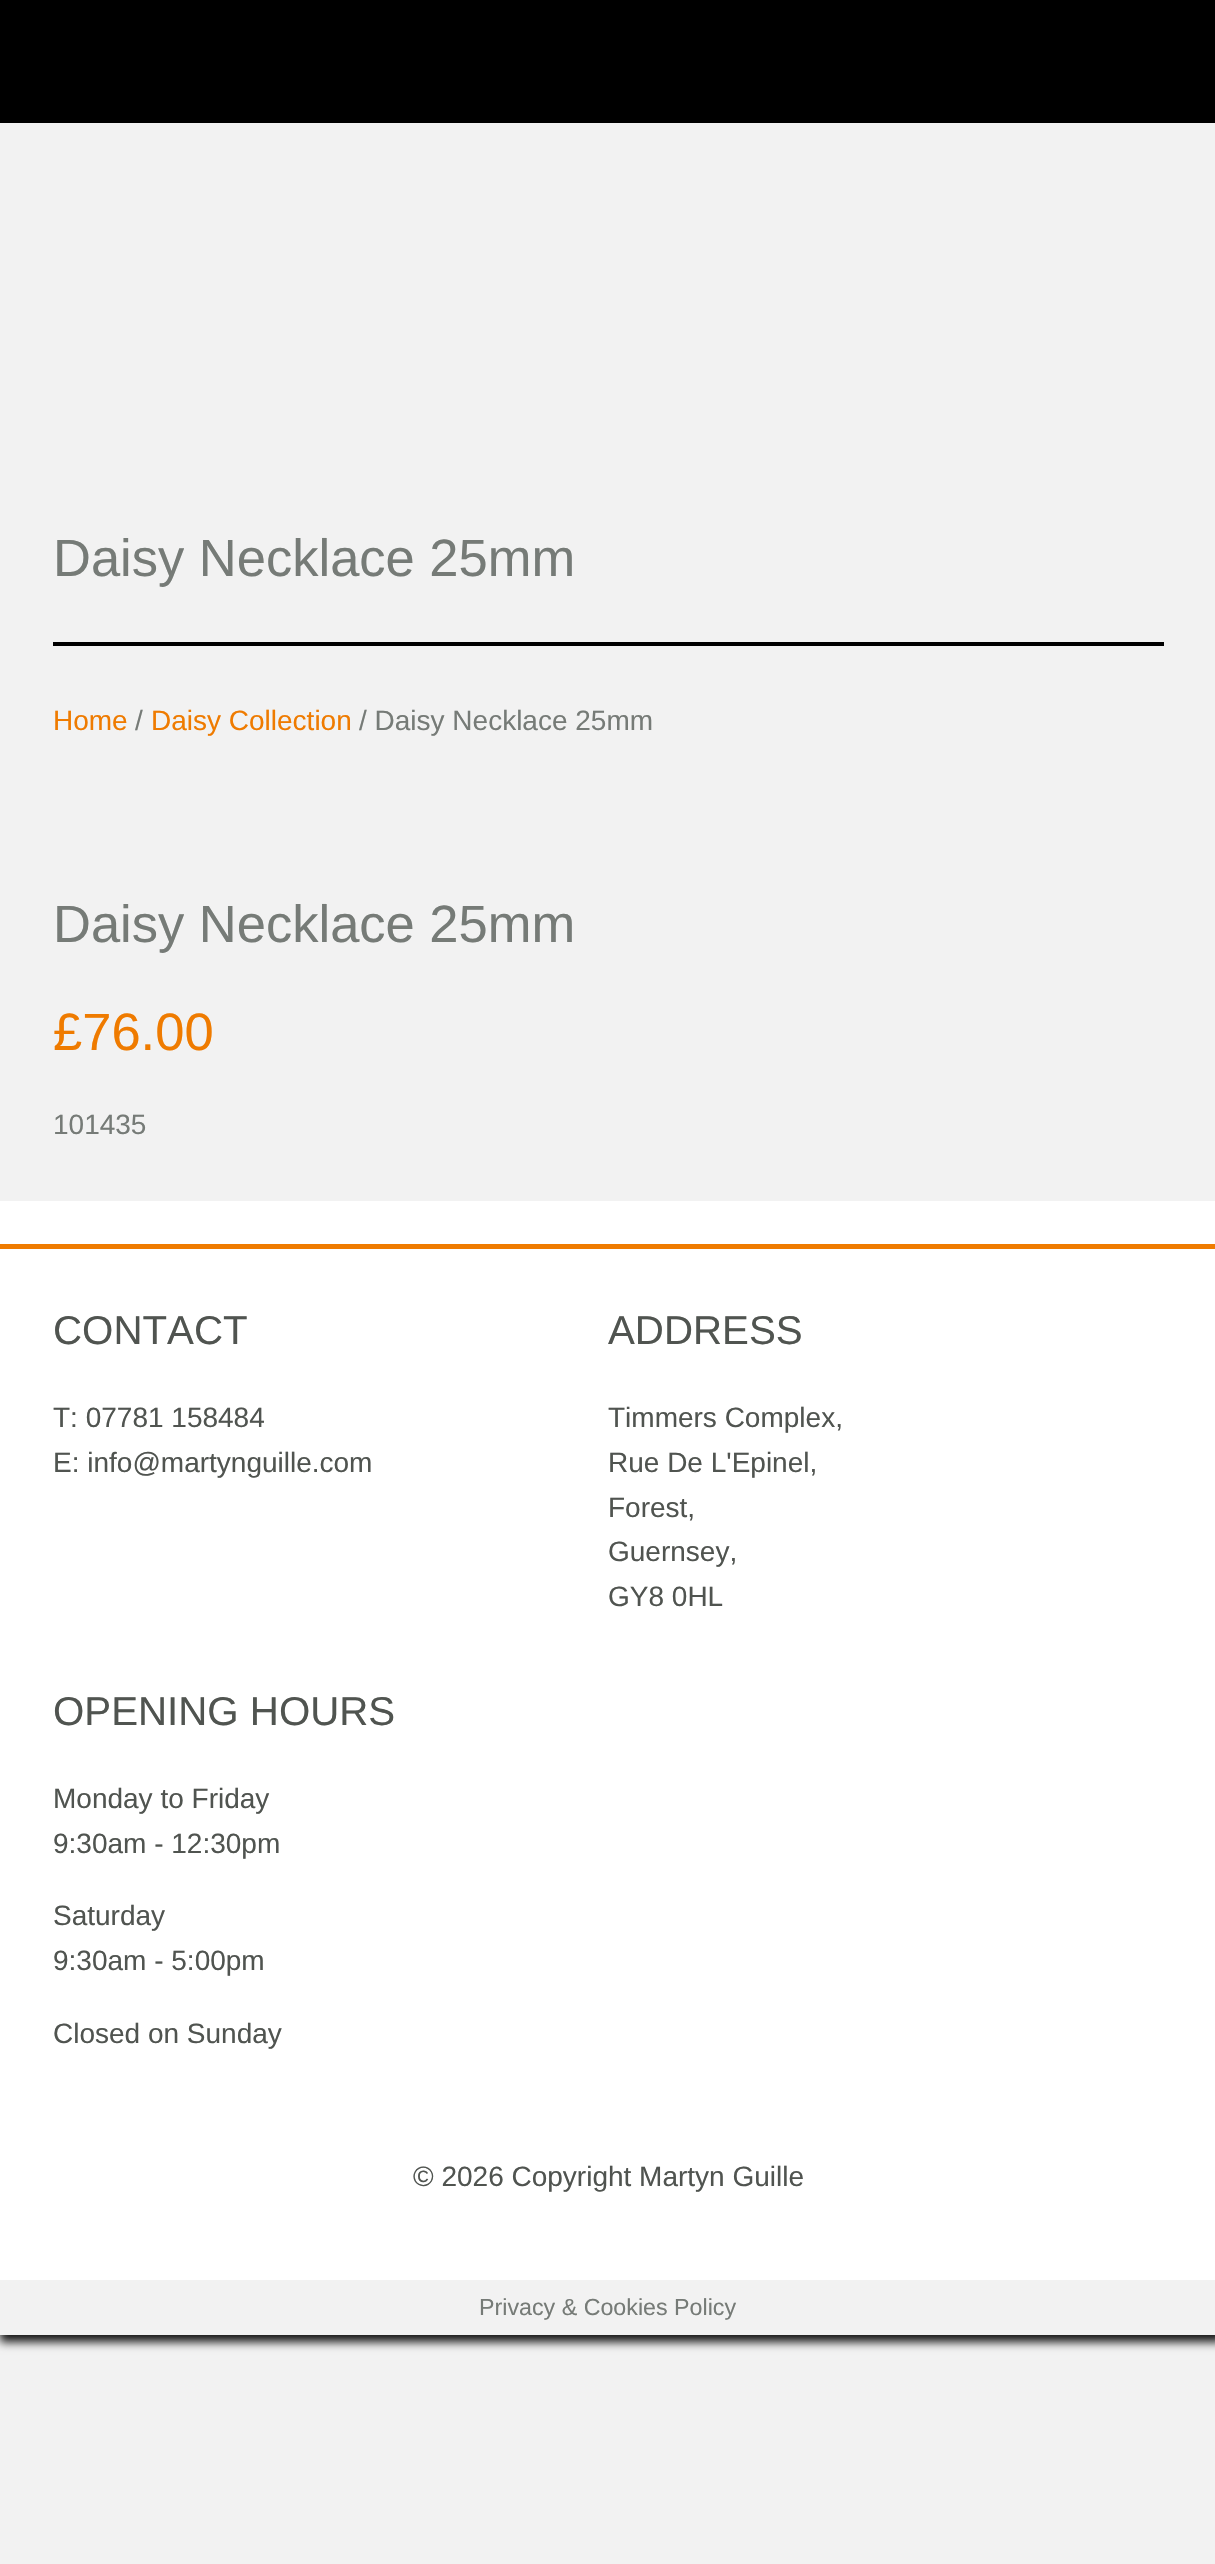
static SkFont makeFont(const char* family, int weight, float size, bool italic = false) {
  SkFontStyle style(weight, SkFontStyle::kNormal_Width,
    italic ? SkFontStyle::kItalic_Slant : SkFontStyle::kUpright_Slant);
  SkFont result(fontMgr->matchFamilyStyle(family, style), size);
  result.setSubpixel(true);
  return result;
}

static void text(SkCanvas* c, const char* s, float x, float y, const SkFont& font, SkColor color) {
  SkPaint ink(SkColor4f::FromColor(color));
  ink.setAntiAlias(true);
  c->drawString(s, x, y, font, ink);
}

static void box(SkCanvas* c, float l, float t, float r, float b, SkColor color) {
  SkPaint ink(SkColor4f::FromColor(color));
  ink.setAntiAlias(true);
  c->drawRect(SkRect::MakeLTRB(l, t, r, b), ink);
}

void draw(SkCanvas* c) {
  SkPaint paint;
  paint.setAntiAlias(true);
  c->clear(0xfff2f2f2);
  box(c, 0, 0, 1215, 123, 0xff000000);
  SkFont face1 = makeFont("Liberation Sans", 400, 52.5f);
  text(c, "Daisy Necklace 25mm", 53, 576, face1, 0xff767b77);
  box(c, 53, 642, 1164, 646, 0xff000000);
  SkFont face2 = makeFont("Liberation Sans", 400, 28);
  text(c, "Home", 53, 730, face2, 0xffef7b00);
  text(c, "/", 135, 730, face2, 0xff767b77);
  text(c, "Daisy Collection", 151, 730, face2, 0xffef7b00);
  text(c, "/ Daisy Necklace 25mm", 359, 730, face2, 0xff767b77);
  text(c, "Daisy Necklace 25mm", 53, 942, face1, 0xff767b77);
  text(c, "£76.00", 53, 1050, face1, 0xffef7b00);
  text(c, "101435", 53, 1134, face2, 0xff767b77);
  c->save();
  c->clipPath(SkPathBuilder(SkPathFillType::kEvenOdd).moveTo(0, 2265).lineTo(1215, 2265).lineTo(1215, 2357).lineTo(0, 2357).close().moveTo(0, 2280).lineTo(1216, 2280).lineTo(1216, 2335).lineTo(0, 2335).close().detach(), true);
  paint.setColor(0xff161616);
  paint.setMaskFilter(SkMaskFilter::MakeBlur(kNormal_SkBlurStyle, 4.5f));
  c->drawRect(SkRect::MakeLTRB(0, 2280, 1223, 2342), paint);
  paint.setMaskFilter(nullptr);
  c->restore();
  box(c, 0, 1201, 1215, 2280, 0xffffffff);
  box(c, 0, 1244, 1215, 1249, 0xffef7b00);
  SkFont face3 = makeFont("Liberation Sans", 400, 40.25f);
  text(c, "CONTACT", 53, 1344, face3, 0xff505450);
  text(c, "T: 07781 158484", 53, 1427, face2, 0xff505450);
  text(c, "E: info@martynguille.com", 53, 1472, face2, 0xff505450);
  text(c, "ADDRESS", 608, 1344, face3, 0xff505450);
  text(c, "Timmers Complex,", 608, 1427, face2, 0xff505450);
  text(c, "Rue De L'Epinel,", 608, 1472, face2, 0xff505450);
  text(c, "Forest,", 608, 1517, face2, 0xff505450);
  text(c, "Guernsey,", 608, 1561, face2, 0xff505450);
  text(c, "GY8 0HL", 608, 1606, face2, 0xff505450);
  text(c, "OPENING HOURS", 53, 1725, face3, 0xff505450);
  text(c, "Monday to Friday", 53, 1808, face2, 0xff505450);
  text(c, "9:30am - 12:30pm", 53, 1853, face2, 0xff505450);
  text(c, "Saturday", 53, 1925, face2, 0xff505450);
  text(c, "9:30am - 5:00pm", 53, 1970, face2, 0xff505450);
  text(c, "Closed on Sunday", 53, 2043, face2, 0xff505450);
  text(c, "© 2026 Copyright Martyn Guille", 413, 2186, face2, 0xff505450);
  SkFont face4 = makeFont("Liberation Sans", 400, 23.25f);
  text(c, "Privacy & Cookies Policy", 479, 2315, face4, 0xff767b77);
}
